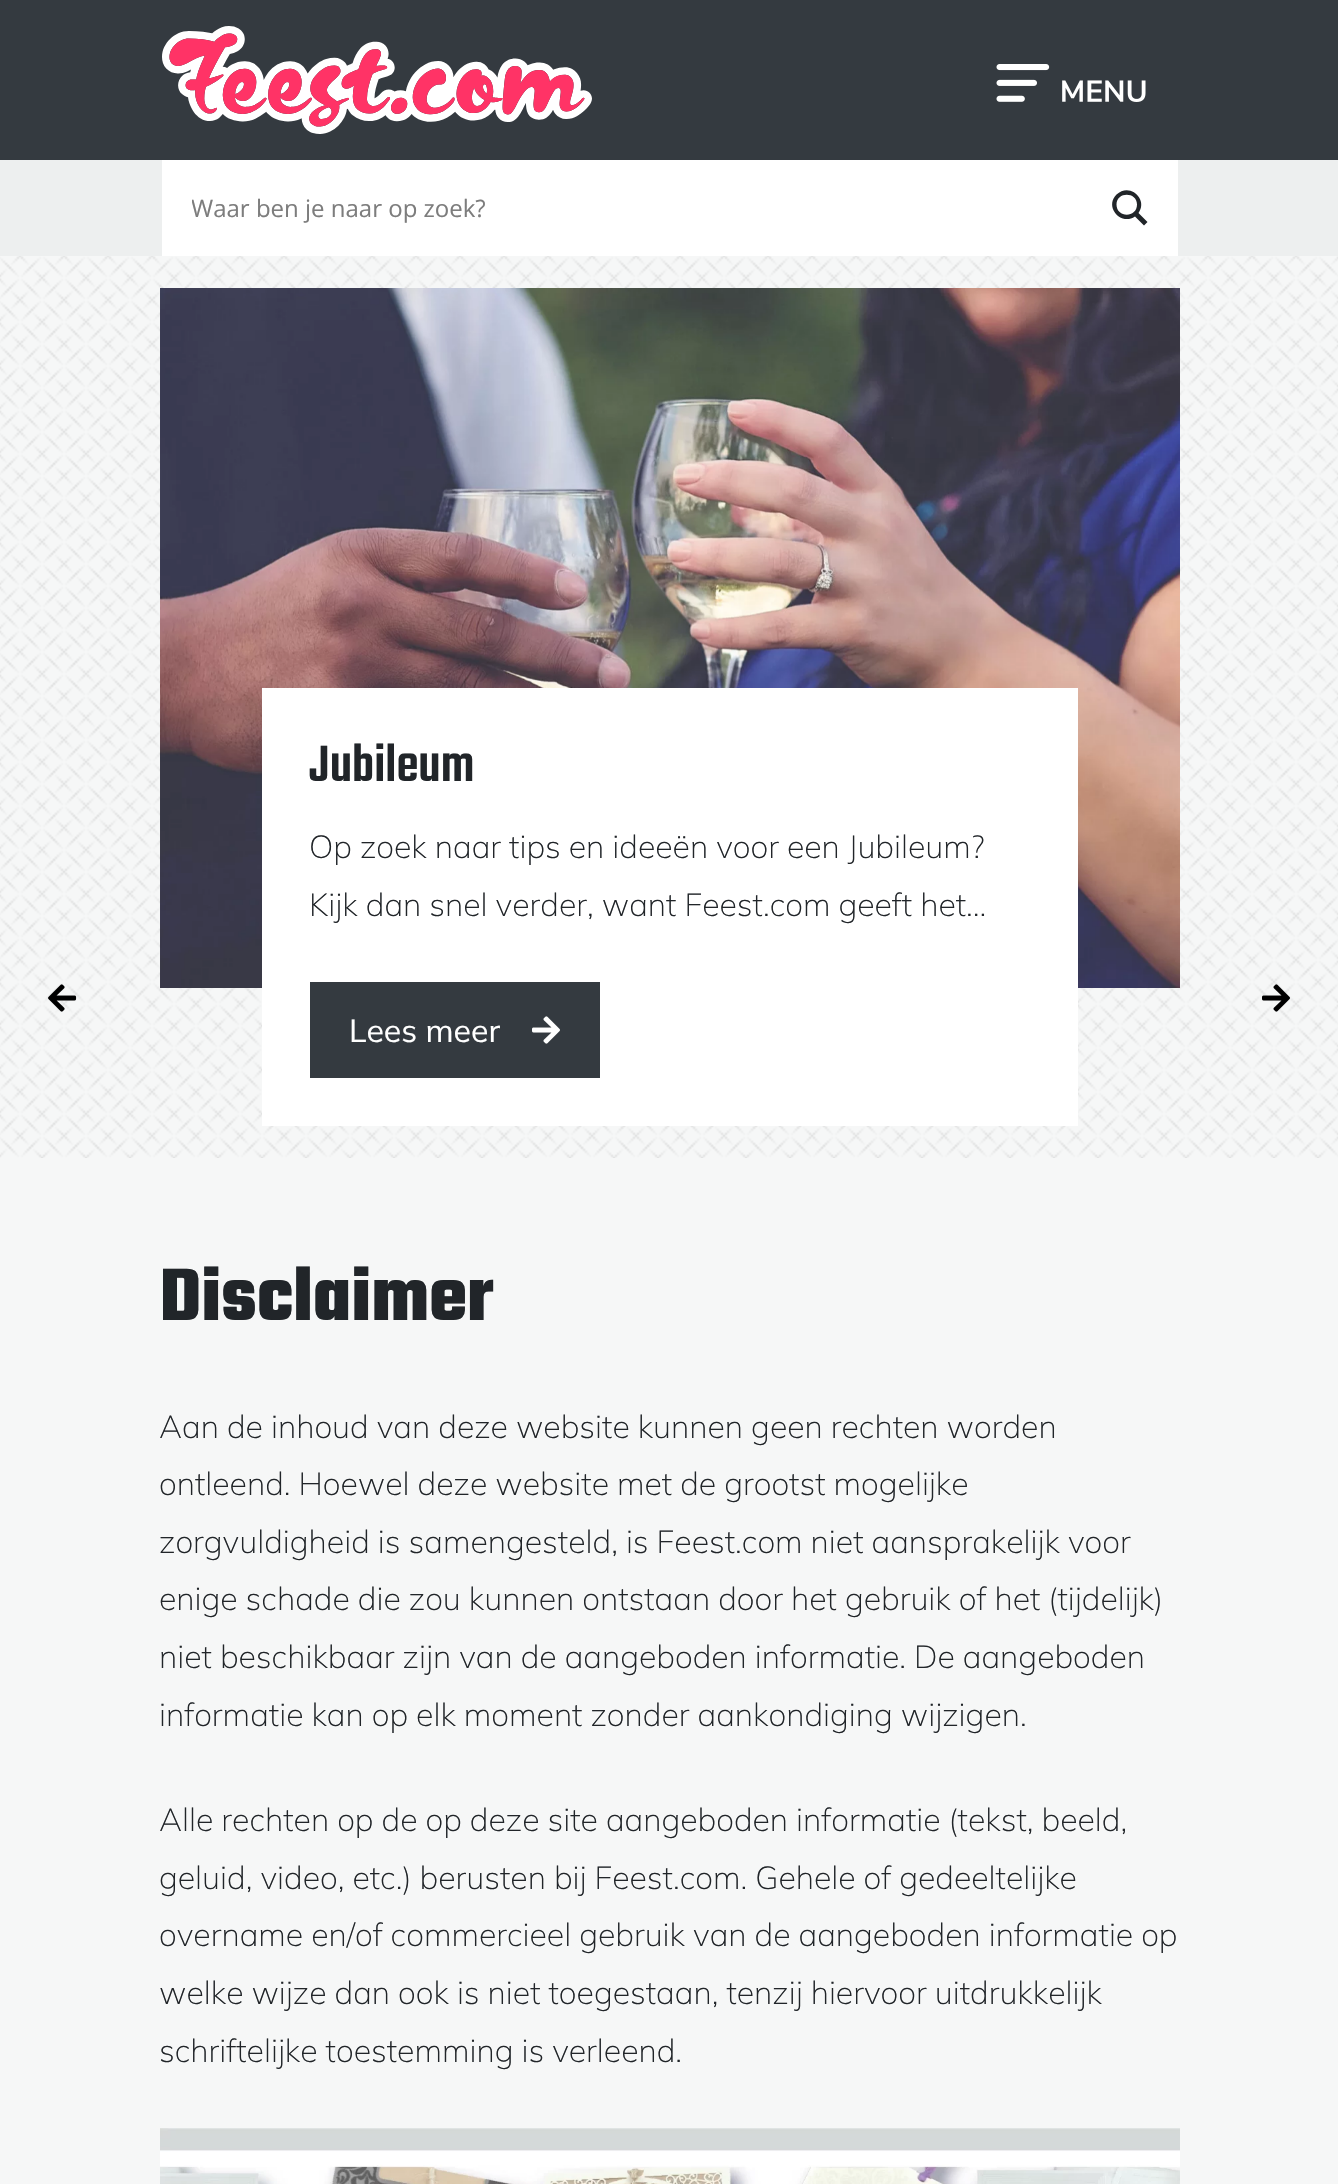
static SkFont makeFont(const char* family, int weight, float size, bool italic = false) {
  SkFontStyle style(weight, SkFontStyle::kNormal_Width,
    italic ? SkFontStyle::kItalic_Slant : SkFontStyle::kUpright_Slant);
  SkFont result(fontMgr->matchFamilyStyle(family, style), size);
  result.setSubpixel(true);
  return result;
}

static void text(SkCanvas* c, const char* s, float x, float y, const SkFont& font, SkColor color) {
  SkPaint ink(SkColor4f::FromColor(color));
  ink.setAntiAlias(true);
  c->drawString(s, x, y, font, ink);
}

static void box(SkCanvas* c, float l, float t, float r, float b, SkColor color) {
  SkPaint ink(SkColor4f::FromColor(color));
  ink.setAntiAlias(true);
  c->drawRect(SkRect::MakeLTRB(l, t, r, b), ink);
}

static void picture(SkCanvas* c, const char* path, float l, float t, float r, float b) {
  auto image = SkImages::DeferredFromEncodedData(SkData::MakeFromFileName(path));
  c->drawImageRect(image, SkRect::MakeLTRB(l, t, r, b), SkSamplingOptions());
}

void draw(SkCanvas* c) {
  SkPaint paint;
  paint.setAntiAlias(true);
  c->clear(0xfff6f7f7);
  box(c, 0, 0, 1338, 160, 0xff343a40);
  picture(c, "img_01.png", 162, 26, 592, 134);
  picture(c, "img_02.png", 996, 64, 1146, 102);
  box(c, 0, 160, 1338, 256, 0xffedefef);
  box(c, 162, 160, 1178, 256, 0xffffffff);
  c->save();
  c->clipRect(SkRect::MakeLTRB(192, 192, 1072, 226));
  SkFont face1 = makeFont("Open Sans", 400, 24);
  text(c, "Waar ben je naar op zoek?", 191, 217, face1, 0xff7d7d7d);
  c->restore();
  paint.setColor(0xff212529);
  c->drawPath(SkPathBuilder().moveTo(1147.5f, 222).lineTo(1138.5f, 213).cubicTo(1148.5f, 199, 1129.5f, 182, 1116.5f, 194.5f).cubicTo(1104, 207, 1121, 226, 1135, 216.5f).lineTo(1144, 225.5f).close().moveTo(1116.5f, 204.5f).cubicTo(1116.5f, 191.5f, 1137, 191.5f, 1137, 204.5f).cubicTo(1137, 218, 1116.5f, 218, 1116.5f, 204.5f).close().detach(), paint);
  picture(c, "img_03.png", 0, 256, 1338, 1158);
  picture(c, "img_04.png", 48, 984, 77, 1012);
  picture(c, "img_05.png", 160, 288, 1180, 988);
  box(c, 262, 688, 1078, 1126, 0xffffffff);
  SkFont face2 = makeFont("Teko", 500, 56);
  text(c, "Jubileum", 309, 781, face2, 0xff212529);
  SkFont face3 = makeFont("Mulish", 200, 32);
  text(c, "Op zoek naar tips en ideeën voor een Jubileum?", 309, 858, face3, 0xff212529);
  text(c, "Kijk dan snel verder, want Feest.com geeft het…", 309, 916, face3, 0xff212529);
  box(c, 310, 982, 600, 1078, 0xff343a40);
  SkFont face4 = makeFont("Mulish", 400, 32);
  text(c, "Lees meer", 349, 1042, face4, 0xffffffff);
  picture(c, "img_06.png", 532, 1016, 560, 1044);
  picture(c, "img_07.png", 1262, 984, 1290, 1012);
  SkFont face5 = makeFont("Teko", 700, 80);
  text(c, "Disclaimer", 159, 1320, face5, 0xff212529);
  text(c, "Aan de inhoud van deze website kunnen geen rechten worden", 159, 1438, face3, 0xff212529);
  text(c, "ontleend. Hoewel deze website met de grootst mogelijke", 159, 1495, face3, 0xff212529);
  text(c, "zorgvuldigheid is samengesteld, is Feest.com niet aansprakelijk voor", 159, 1553, face3, 0xff212529);
  text(c, "enige schade die zou kunnen ontstaan door het gebruik of het (tijdelijk)", 159, 1610, face3, 0xff212529);
  text(c, "niet beschikbaar zijn van de aangeboden informatie. De aangeboden", 159, 1668, face3, 0xff212529);
  text(c, "informatie kan op elk moment zonder aankondiging wijzigen.", 159, 1726, face3, 0xff212529);
  text(c, "Alle rechten op de op deze site aangeboden informatie (tekst, beeld,", 159, 1831, face3, 0xff212529);
  text(c, "geluid, video, etc.) berusten bij Feest.com. Gehele of gedeeltelijke", 159, 1889, face3, 0xff212529);
  text(c, "overname en/of commercieel gebruik van de aangeboden informatie op", 159, 1946, face3, 0xff212529);
  text(c, "welke wijze dan ook is niet toegestaan, tenzij hiervoor uitdrukkelijk", 159, 2004, face3, 0xff212529);
  text(c, "schriftelijke toestemming is verleend.", 159, 2062, face3, 0xff212529);
  picture(c, "img_08.png", 160, 2128, 1180, 2184);
}
